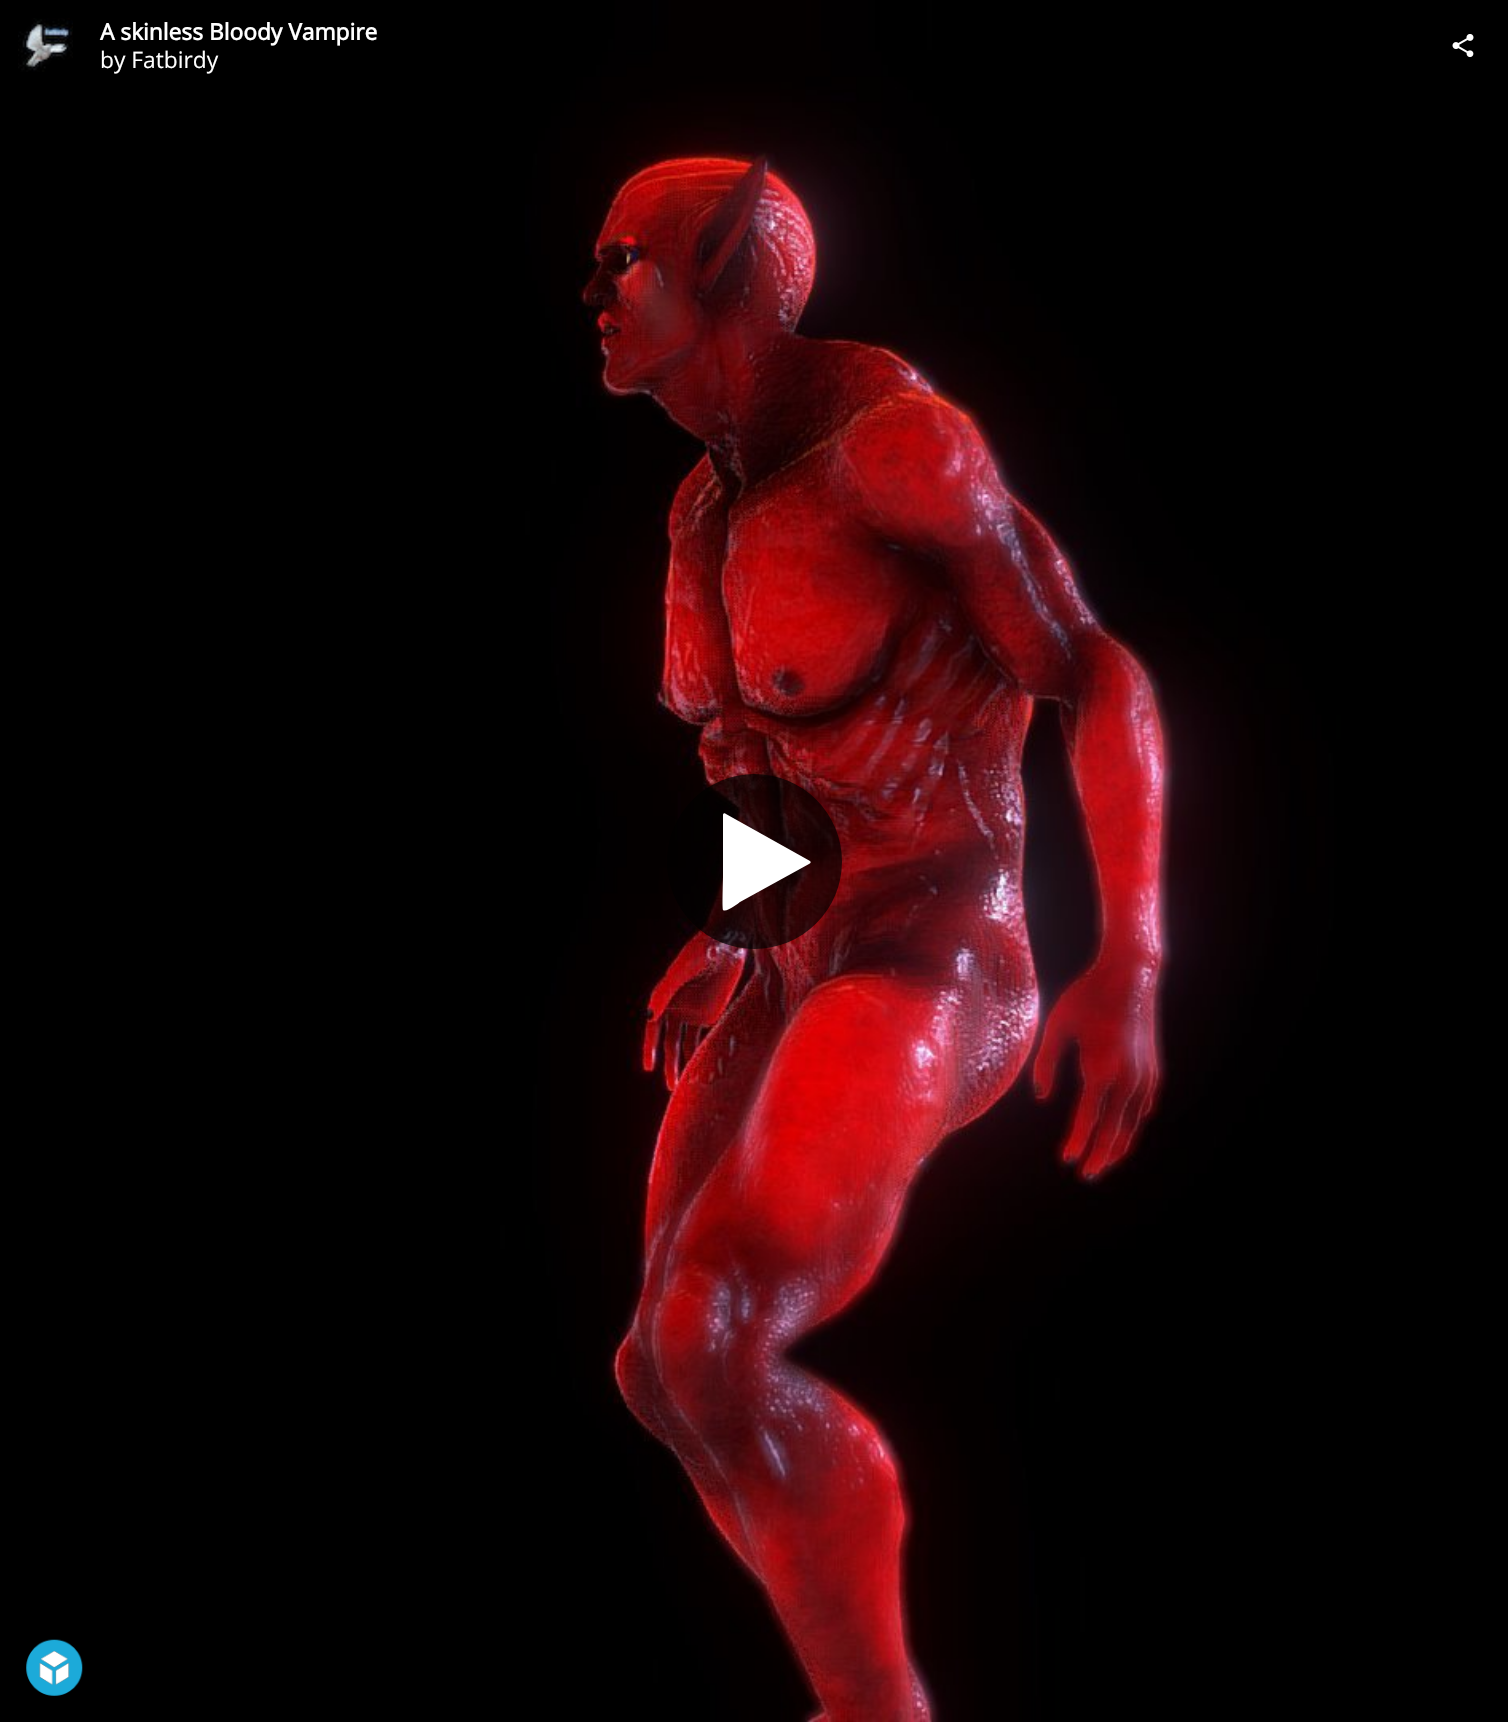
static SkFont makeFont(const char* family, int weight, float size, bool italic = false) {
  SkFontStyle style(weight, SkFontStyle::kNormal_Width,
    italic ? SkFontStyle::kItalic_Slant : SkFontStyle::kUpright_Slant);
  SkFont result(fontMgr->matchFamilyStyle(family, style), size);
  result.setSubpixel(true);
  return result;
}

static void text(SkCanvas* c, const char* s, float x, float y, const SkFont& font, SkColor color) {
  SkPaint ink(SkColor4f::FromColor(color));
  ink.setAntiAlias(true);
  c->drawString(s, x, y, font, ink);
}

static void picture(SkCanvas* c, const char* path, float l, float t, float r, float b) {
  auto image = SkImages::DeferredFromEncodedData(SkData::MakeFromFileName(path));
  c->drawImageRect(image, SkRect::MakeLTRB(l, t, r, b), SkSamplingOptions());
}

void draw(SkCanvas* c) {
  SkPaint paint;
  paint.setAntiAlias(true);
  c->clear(0xffffffff);
  picture(c, "img_01.png", 0, 0, 1508, 1722);
  paint.setColor(0xb3000000);
  c->drawCircle(754.5f, 861.5f, 87.5f, paint);
  paint.setColor(0xffffffff);
  c->drawPath(SkPathBuilder().moveTo(809, 864).lineTo(740, 902).cubicTo(739, 903, 726, 913, 723, 910).cubicTo(722, 907, 723, 880, 723, 877).lineTo(723, 815).cubicTo(723, 813, 725, 813, 726, 814).lineTo(810, 861).cubicTo(811, 862, 811, 863, 809, 864).close().detach(), paint);
  picture(c, "img_02.png", 26, 1639, 83, 1696);
  picture(c, "img_03.png", 18, 18, 73, 72);
  SkFont face1 = makeFont("Open Sans", 700, 22.75f);
  text(c, "A skinless Bloody Vampire", 100, 40, face1, 0xffffffff);
  SkFont face2 = makeFont("Open Sans", 400, 22.75f);
  text(c, "by Fatbirdy", 100, 68, face2, 0xffffffff);
  picture(c, "img_04.png", 1452, 34, 1474, 58);
}
